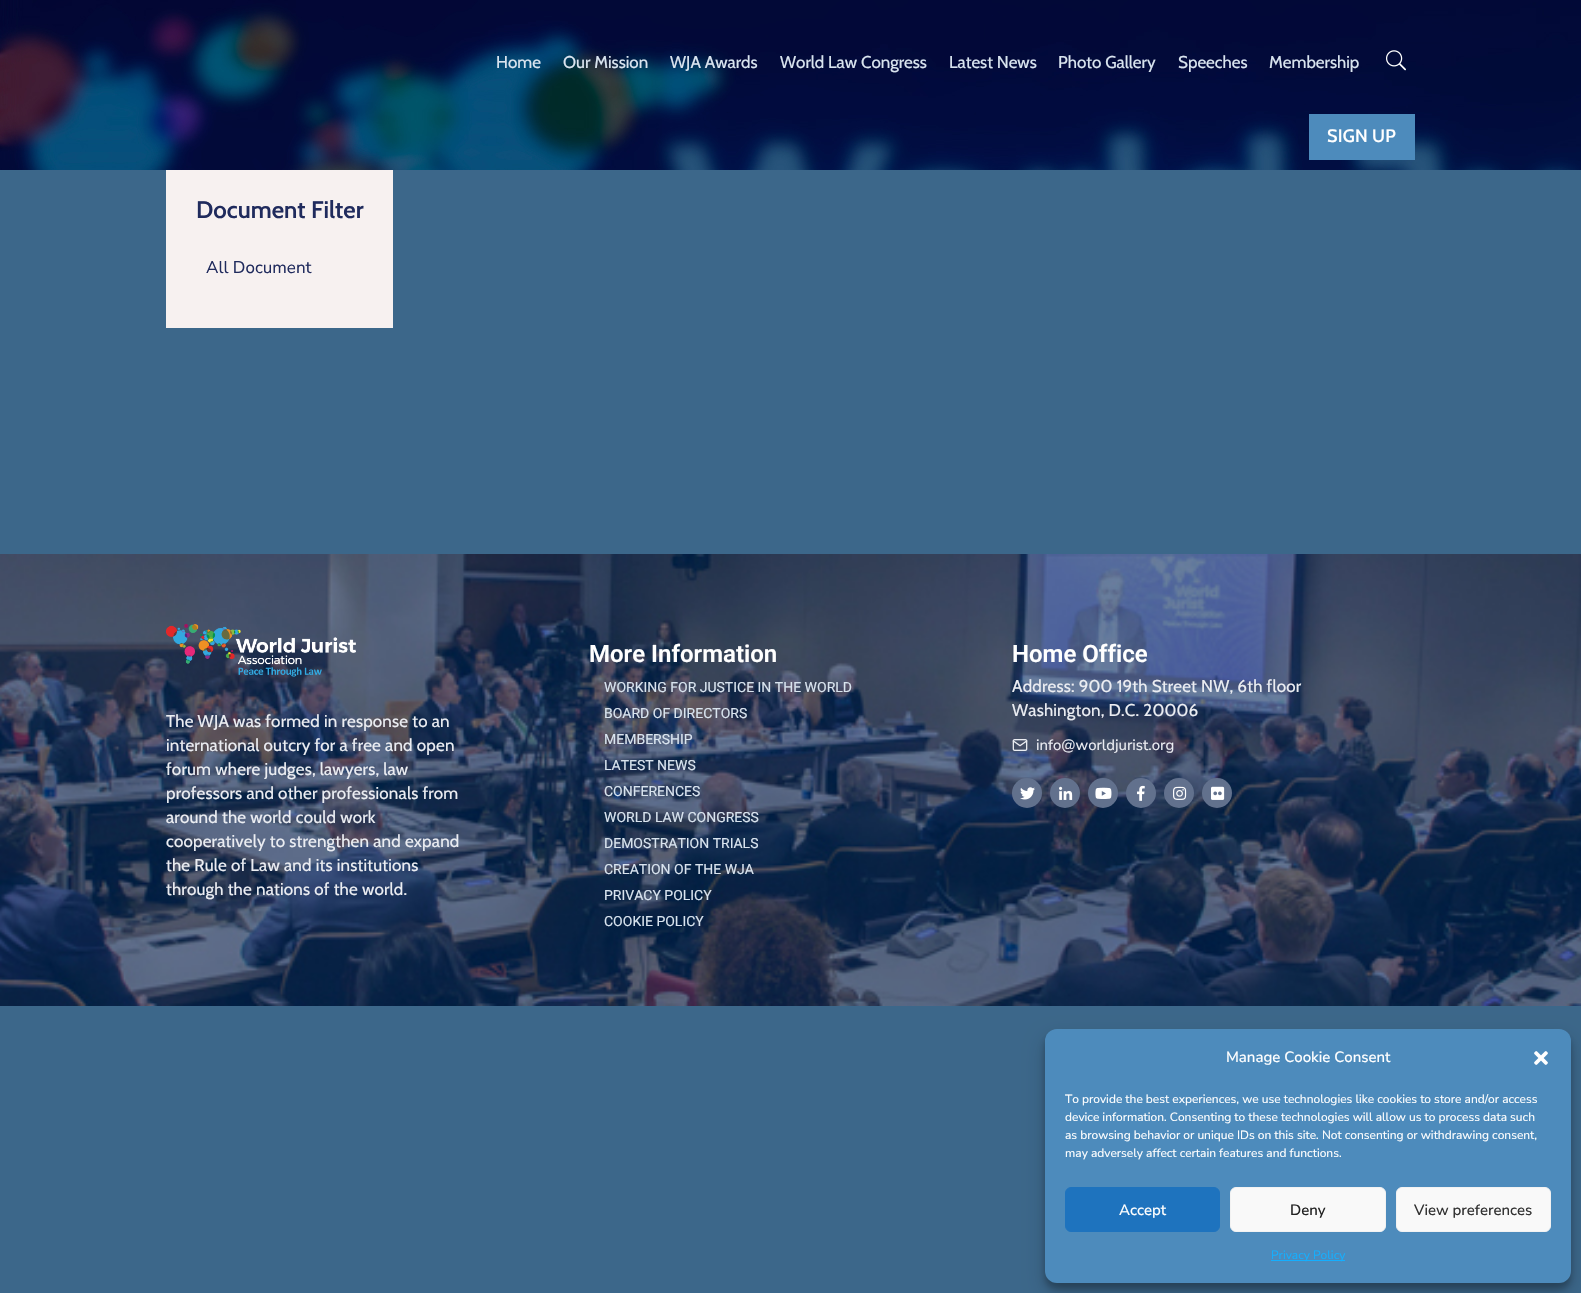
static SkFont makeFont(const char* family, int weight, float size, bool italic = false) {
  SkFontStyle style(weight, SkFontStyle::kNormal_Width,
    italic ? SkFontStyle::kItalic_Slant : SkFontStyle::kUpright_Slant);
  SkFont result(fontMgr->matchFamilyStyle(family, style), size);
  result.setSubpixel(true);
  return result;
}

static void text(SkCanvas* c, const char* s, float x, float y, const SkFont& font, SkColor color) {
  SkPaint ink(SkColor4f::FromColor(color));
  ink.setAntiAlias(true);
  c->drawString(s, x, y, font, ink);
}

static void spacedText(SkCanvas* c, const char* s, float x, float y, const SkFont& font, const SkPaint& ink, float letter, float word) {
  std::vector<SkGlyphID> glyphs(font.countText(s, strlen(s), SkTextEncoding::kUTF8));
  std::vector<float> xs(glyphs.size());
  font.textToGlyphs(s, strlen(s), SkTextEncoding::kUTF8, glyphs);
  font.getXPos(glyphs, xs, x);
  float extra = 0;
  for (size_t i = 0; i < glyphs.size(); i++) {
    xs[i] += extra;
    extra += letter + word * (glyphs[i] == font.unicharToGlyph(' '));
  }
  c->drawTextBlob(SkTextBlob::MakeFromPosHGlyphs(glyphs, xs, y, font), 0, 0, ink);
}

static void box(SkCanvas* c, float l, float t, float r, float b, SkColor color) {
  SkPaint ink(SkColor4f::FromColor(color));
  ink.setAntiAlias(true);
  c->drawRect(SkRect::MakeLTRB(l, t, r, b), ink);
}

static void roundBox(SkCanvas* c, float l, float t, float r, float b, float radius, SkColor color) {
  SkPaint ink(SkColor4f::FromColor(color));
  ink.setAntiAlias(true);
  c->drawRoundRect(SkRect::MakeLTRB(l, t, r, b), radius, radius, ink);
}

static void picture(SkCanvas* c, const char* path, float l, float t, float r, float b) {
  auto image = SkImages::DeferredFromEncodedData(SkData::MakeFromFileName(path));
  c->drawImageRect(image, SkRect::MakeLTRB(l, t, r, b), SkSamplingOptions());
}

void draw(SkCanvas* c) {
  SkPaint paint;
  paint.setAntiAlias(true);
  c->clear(0xff3c678a);
  picture(c, "img_01.png", 0, 0, 1581, 170);
  SkFont face1 = makeFont("Cabin", 400, 17);
  text(c, "Home", 496, 68, face1, 0xffd9e4ef);
  text(c, "Our Mission", 563, 68, face1, 0xffd9e4ef);
  text(c, "WJA Awards", 670, 68, face1, 0xffd9e4ef);
  text(c, "World Law Congress", 780, 68, face1, 0xffd9e4ef);
  text(c, "Latest News", 949, 68, face1, 0xffd9e4ef);
  text(c, "Photo Gallery", 1058, 68, face1, 0xffd9e4ef);
  text(c, "Speeches", 1178, 68, face1, 0xffd9e4ef);
  text(c, "Membership", 1269, 68, face1, 0xffd9e4ef);
  picture(c, "img_02.png", 1386, 50, 1406, 71);
  box(c, 1309, 114, 1415, 160, 0xff4d8bbc);
  SkFont face2 = makeFont("Cabin", 500, 18);
  paint.setColor(0xffffffff);
  spacedText(c, "SIGN UP", 1327, 142, face2, paint, 0.2f, 0);
  box(c, 166, 170, 393, 328, 0xfff7f1f0);
  SkFont face3 = makeFont("Cabin", 600, 24);
  text(c, "Document Filter", 196, 218, face3, 0xff202b5d);
  SkFont face4 = makeFont("Nunito Sans", 400, 17);
  text(c, "All Document", 206, 273, face4, 0xff202b5d);
  picture(c, "img_03.png", 0, 554, 1581, 1006);
  SkFont face5 = makeFont("Roboto", 600, 24);
  text(c, "More Information", 589, 662, face5, 0xffffffff);
  SkFont face6 = makeFont("Roboto", 400, 14);
  text(c, "WORKING FOR JUSTICE IN THE WORLD", 604, 692, face6, 0xffd9e4ef);
  text(c, "BOARD OF DIRECTORS", 604, 718, face6, 0xffd9e4ef);
  text(c, "MEMBERSHIP", 604, 744, face6, 0xffd9e4ef);
  text(c, "LATEST NEWS", 604, 770, face6, 0xffd9e4ef);
  text(c, "CONFERENCES", 604, 796, face6, 0xffd9e4ef);
  text(c, "WORLD LAW CONGRESS", 604, 822, face6, 0xffd9e4ef);
  text(c, "DEMOSTRATION TRIALS", 604, 848, face6, 0xffd9e4ef);
  text(c, "CREATION OF THE WJA", 604, 874, face6, 0xffd9e4ef);
  text(c, "PRIVACY POLICY", 604, 900, face6, 0xffd9e4ef);
  text(c, "COOKIE POLICY", 604, 926, face6, 0xffd9e4ef);
  text(c, "Home Office", 1012, 662, face5, 0xffffffff);
  paint.setColor(0xffebedf2);
  spacedText(c, "Address: 900 19th Street NW, 6th floor", 1012, 692, face1, paint, 0.2f, 0);
  spacedText(c, "Washington, D.C. 20006", 1012, 716, face1, paint, 0.2f, 0);
  picture(c, "img_04.png", 1012, 739, 1028, 751);
  SkFont face7 = makeFont("Nunito Sans", 400, 15);
  text(c, "info@worldjurist.org", 1036, 750, face7, 0xffebedf2);
  paint.setColor(0xff62718d);
  c->drawCircle(1027, 793, 15, paint);
  picture(c, "img_05.png", 1020, 787, 1035, 800);
  c->drawCircle(1065, 793, 15, paint);
  picture(c, "img_06.png", 1059, 786, 1073, 800);
  c->drawCircle(1103, 793, 15, paint);
  picture(c, "img_07.png", 1095, 787, 1112, 799);
  c->drawCircle(1141, 793, 15, paint);
  picture(c, "img_08.png", 1137, 785, 1145, 801);
  c->drawCircle(1179, 793, 15, paint);
  picture(c, "img_09.png", 1173, 786, 1187, 800);
  c->drawCircle(1217, 793, 15, paint);
  picture(c, "img_10.png", 1211, 786, 1225, 800);
  picture(c, "img_11.png", 166, 624, 356, 677);
  paint.setColor(0xffebedf2);
  spacedText(c, "The WJA was formed in response to an", 166, 727, face1, paint, 0.2f, 0);
  spacedText(c, "international outcry for a free and open", 166, 751, face1, paint, 0.2f, 0);
  spacedText(c, "forum where judges, lawyers, law", 166, 775, face1, paint, 0.2f, 0);
  spacedText(c, "professors and other professionals from", 166, 799, face1, paint, 0.2f, 0);
  spacedText(c, "around the world could work", 166, 823, face1, paint, 0.2f, 0);
  spacedText(c, "cooperatively to strengthen and expand", 166, 847, face1, paint, 0.2f, 0);
  spacedText(c, "the Rule of Law and its institutions", 166, 871, face1, paint, 0.2f, 0);
  spacedText(c, "through the nations of the world.", 166, 895, face1, paint, 0.2f, 0);
  paint.setColor(0x3b000000);
  paint.setMaskFilter(SkMaskFilter::MakeBlur(kNormal_SkBlurStyle, 3));
  c->drawRoundRect(SkRect::MakeLTRB(1045, 1035, 1571, 1289), 12, 12, paint);
  paint.setMaskFilter(nullptr);
  paint.setColor(0x30000000);
  paint.setMaskFilter(SkMaskFilter::MakeBlur(kNormal_SkBlurStyle, 10));
  c->drawRoundRect(SkRect::MakeLTRB(1045, 1039, 1571, 1293), 12, 12, paint);
  paint.setMaskFilter(nullptr);
  roundBox(c, 1045, 1029, 1571, 1283, 12, 0xff4d8bbc);
  SkFont face8 = makeFont("Nunito Sans", 500, 15);
  text(c, "Manage Cookie Consent", 1226, 1062, face8, 0xffffffff);
  picture(c, "img_12.png", 1534, 1051, 1548, 1065);
  SkFont face9 = makeFont("Nunito Sans", 400, 12);
  text(c, "To provide the best experiences, we use technologies like cookies to store and/or access", 1065, 1103, face9, 0xffffffff);
  text(c, "device information. Consenting to these technologies will allow us to process data such", 1065, 1121, face9, 0xffffffff);
  text(c, "as browsing behavior or unique IDs on this site. Not consenting or withdrawing consent,", 1065, 1139, face9, 0xffffffff);
  text(c, "may adversely affect certain features and functions.", 1065, 1157, face9, 0xffffffff);
  paint.setColor(0xff1e73be);
  c->drawRoundRect(SkRect::MakeLTRB(1065.5f, 1187.5f, 1219.5f, 1231.5f), 5.5f, 5.5f, paint);
  paint.setStyle(SkPaint::kStroke_Style);
  paint.setStrokeWidth(1);
  c->drawRoundRect(SkRect::MakeLTRB(1065.5f, 1187.5f, 1219.5f, 1231.5f), 5.5f, 5.5f, paint);
  text(c, "Accept", 1119, 1215, face8, 0xffffffff);
  paint.setStyle(SkPaint::kFill_Style);
  paint.setColor(0xfff9f9f9);
  c->drawRoundRect(SkRect::MakeLTRB(1230.5f, 1187.5f, 1385.5f, 1231.5f), 5.5f, 5.5f, paint);
  paint.setStyle(SkPaint::kStroke_Style);
  paint.setColor(0xfff2f2f2);
  c->drawRoundRect(SkRect::MakeLTRB(1230.5f, 1187.5f, 1385.5f, 1231.5f), 5.5f, 5.5f, paint);
  text(c, "Deny", 1290, 1215, face8, 0xff222222);
  paint.setStyle(SkPaint::kFill_Style);
  paint.setColor(0xfff9f9f9);
  c->drawRoundRect(SkRect::MakeLTRB(1396.5f, 1187.5f, 1550.5f, 1231.5f), 5.5f, 5.5f, paint);
  paint.setStyle(SkPaint::kStroke_Style);
  paint.setColor(0xfff2f2f2);
  c->drawRoundRect(SkRect::MakeLTRB(1396.5f, 1187.5f, 1550.5f, 1231.5f), 5.5f, 5.5f, paint);
  text(c, "View preferences", 1414, 1215, face8, 0xff333333);
  box(c, 1271, 1260, 1345, 1261, 0xff14afff);
  text(c, "Privacy Policy", 1271, 1259, face9, 0xff14afff);
}
